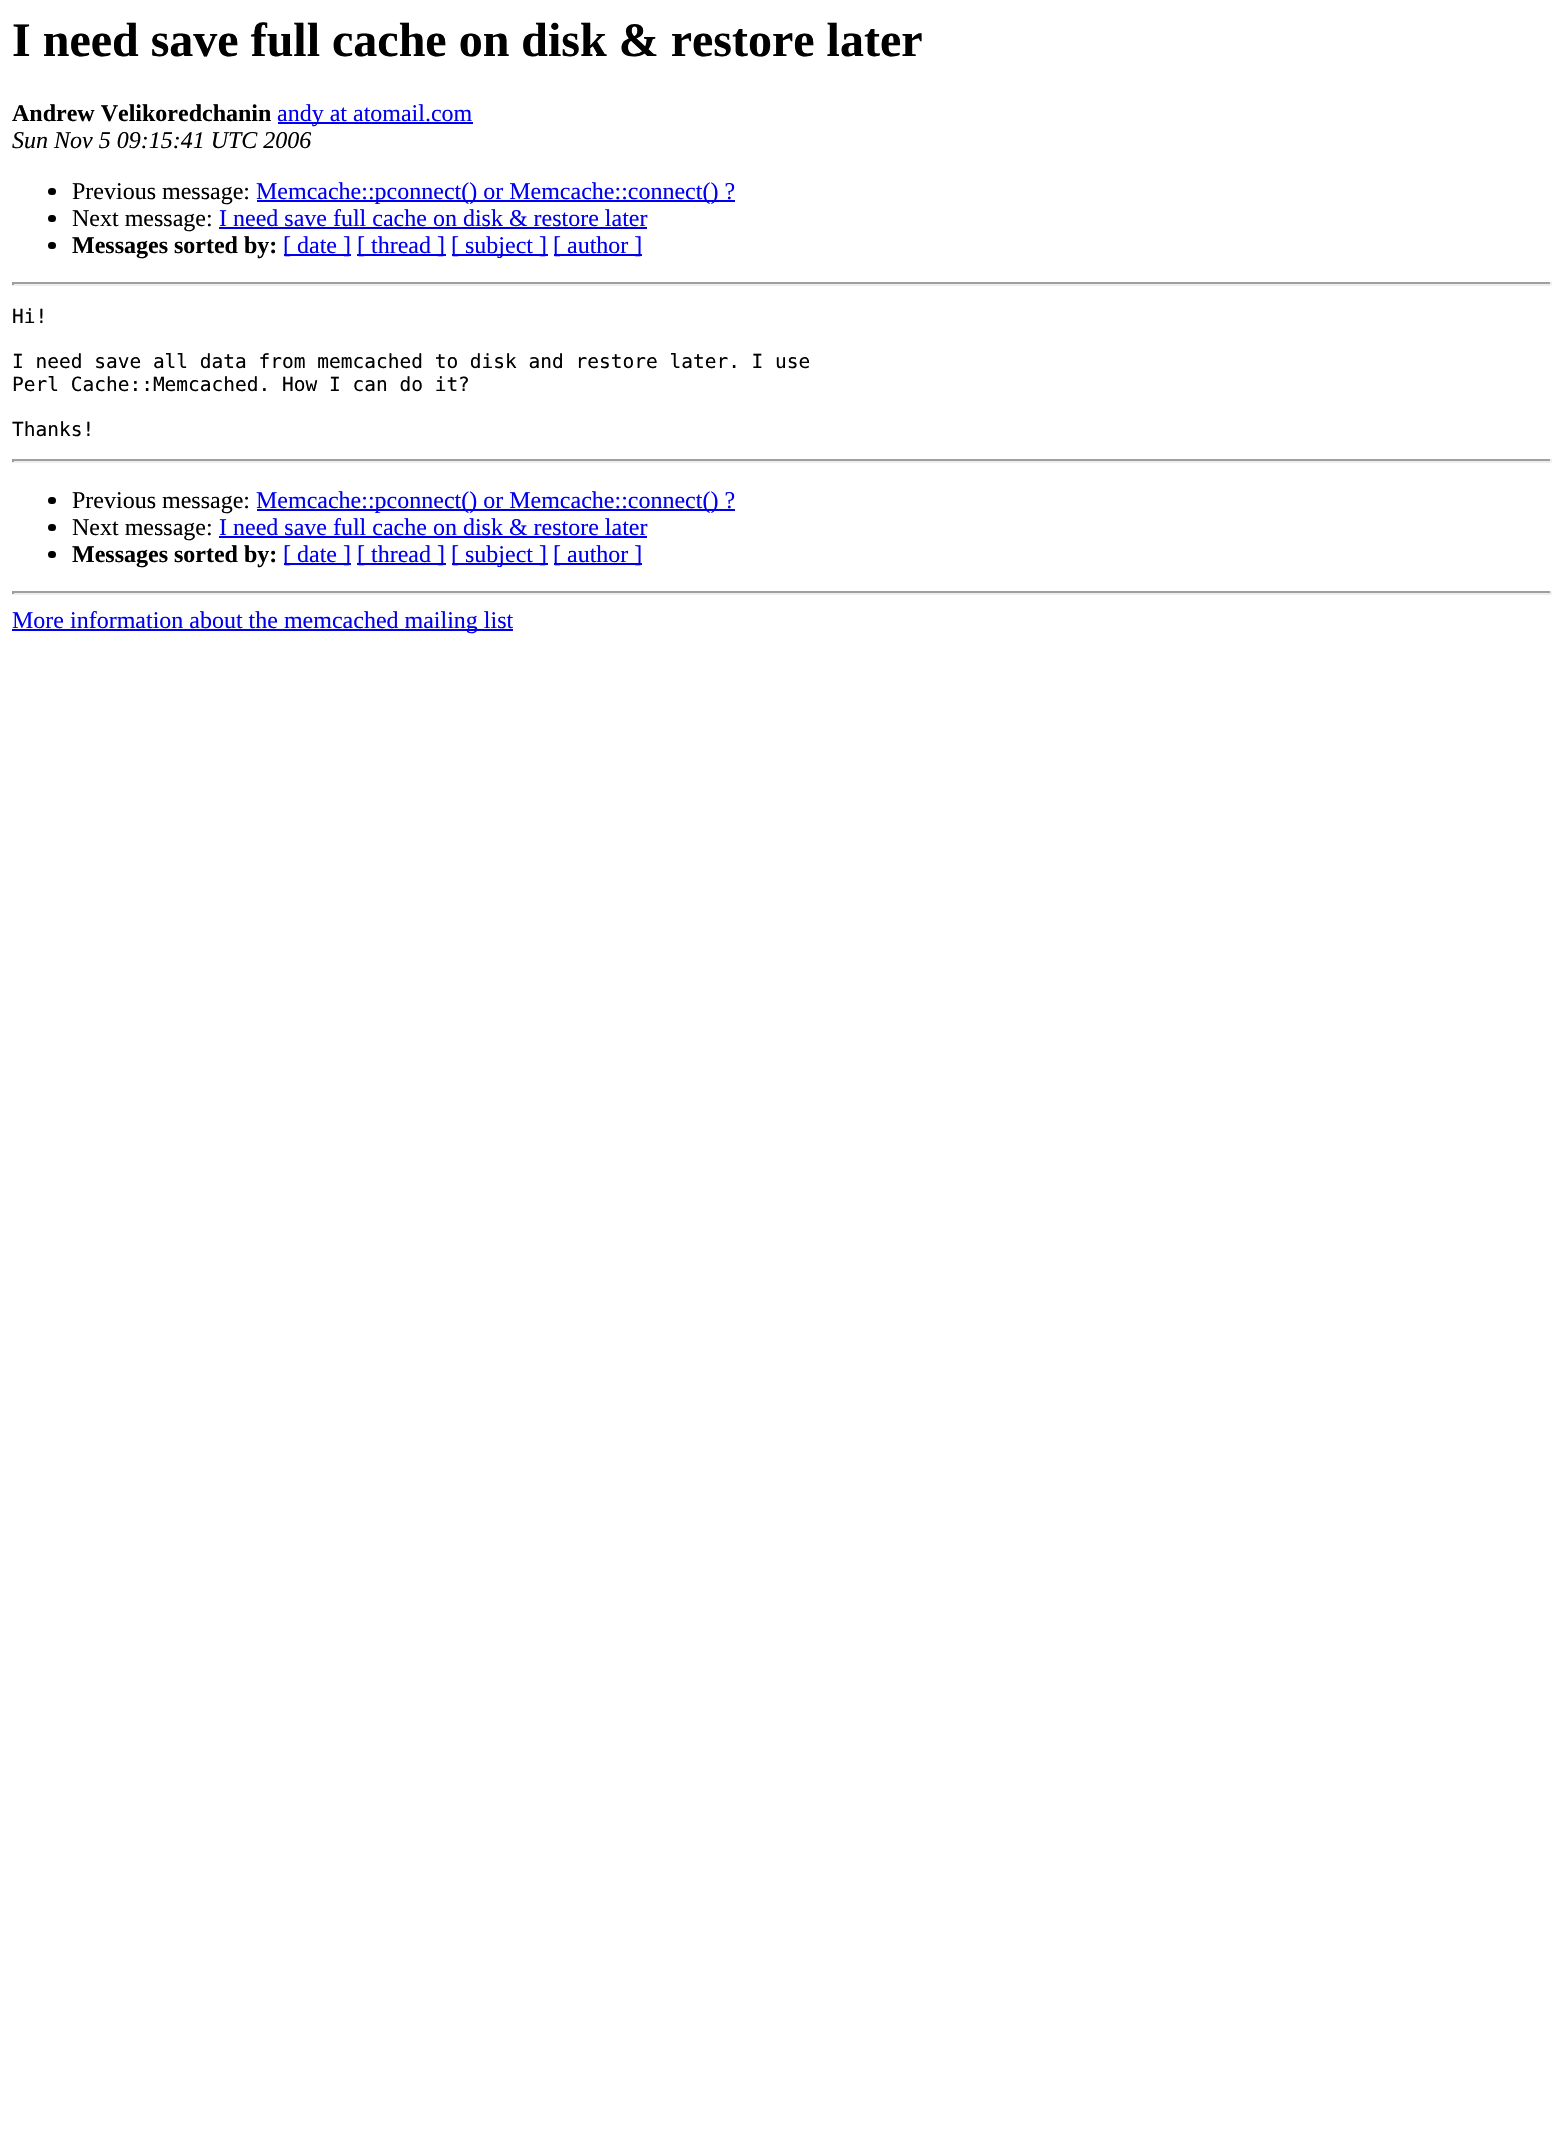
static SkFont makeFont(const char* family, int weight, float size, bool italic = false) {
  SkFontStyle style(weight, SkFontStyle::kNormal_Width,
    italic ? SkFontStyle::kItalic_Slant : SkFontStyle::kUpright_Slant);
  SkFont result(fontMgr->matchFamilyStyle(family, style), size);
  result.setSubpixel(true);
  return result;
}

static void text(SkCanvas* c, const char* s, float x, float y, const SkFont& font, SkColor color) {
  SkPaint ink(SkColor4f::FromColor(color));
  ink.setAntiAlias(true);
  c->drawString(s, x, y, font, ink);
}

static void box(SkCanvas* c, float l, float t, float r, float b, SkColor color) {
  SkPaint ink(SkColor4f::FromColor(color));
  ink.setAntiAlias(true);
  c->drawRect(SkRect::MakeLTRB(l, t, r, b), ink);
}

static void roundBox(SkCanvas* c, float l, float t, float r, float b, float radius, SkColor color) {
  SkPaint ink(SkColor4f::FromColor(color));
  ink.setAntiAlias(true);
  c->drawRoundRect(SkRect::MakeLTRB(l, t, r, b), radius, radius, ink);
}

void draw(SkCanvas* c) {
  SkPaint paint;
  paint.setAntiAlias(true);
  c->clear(0xffffffff);
  SkFont face1 = makeFont("Liberation Serif", 700, 48);
  text(c, "I need save full cache on disk & restore later", 12, 56, face1, 0xff000000);
  SkFont face2 = makeFont("Liberation Serif", 700, 24);
  text(c, "Andrew Velikoredchanin", 12, 121, face2, 0xff000000);
  box(c, 278, 122, 473, 124, 0xff0000ee);
  SkFont face3 = makeFont("Liberation Serif", 400, 24);
  text(c, "andy at atomail.com", 277, 121, face3, 0xff0000ee);
  SkFont face4 = makeFont("Liberation Serif", 400, 24, true);
  text(c, "Sun Nov 5 09:15:41 UTC 2006", 12, 148, face4, 0xff000000);
  roundBox(c, 48, 188, 56, 195, 3.5f, 0xff000000);
  text(c, "Previous message:", 72, 199, face3, 0xff000000);
  box(c, 257, 200, 735, 202, 0xff0000ee);
  text(c, "Memcache::pconnect() or Memcache::connect() ?", 256, 199, face3, 0xff0000ee);
  roundBox(c, 48, 215, 56, 222, 3.5f, 0xff000000);
  text(c, "Next message:", 72, 226, face3, 0xff000000);
  text(c, "I need save full cache on disk & restore later", 219, 226, face3, 0xff0000ee);
  box(c, 219, 227, 647, 229, 0xff0000ee);
  roundBox(c, 48, 242, 56, 249, 3.5f, 0xff000000);
  text(c, "Messages sorted by:", 72, 253, face2, 0xff000000);
  box(c, 284, 254, 351, 256, 0xff0000ee);
  text(c, "[ date ]", 283, 253, face3, 0xff0000ee);
  box(c, 357, 254, 446, 256, 0xff0000ee);
  text(c, "[ thread ]", 357, 253, face3, 0xff0000ee);
  box(c, 452, 254, 548, 256, 0xff0000ee);
  text(c, "[ subject ]", 451, 253, face3, 0xff0000ee);
  box(c, 554, 254, 642, 256, 0xff0000ee);
  text(c, "[ author ]", 553, 253, face3, 0xff0000ee);
  box(c, 12, 282, 1551, 284, 0xff9f9f9f);
  box(c, 1550, 282, 1552, 285, 0xffeeeeee);
  box(c, 12, 284, 1551, 286, 0xffeeeeee);
  box(c, 12, 282, 14, 285, 0xff9f9f9f);
  SkFont face5 = makeFont("DejaVu Sans Mono", 400, 19.5f);
  text(c, "Hi!", 12, 323, face5, 0xff000000);
  text(c, "I need save all data from memcached to disk and restore later. I use", 12, 368, face5, 0xff000000);
  text(c, "Perl Cache::Memcached. How I can do it?", 12, 391, face5, 0xff000000);
  text(c, "Thanks!", 12, 436, face5, 0xff000000);
  box(c, 12, 459, 1551, 461, 0xff9f9f9f);
  box(c, 1550, 459, 1552, 462, 0xffeeeeee);
  box(c, 12, 461, 1551, 463, 0xffeeeeee);
  box(c, 12, 459, 14, 462, 0xff9f9f9f);
  roundBox(c, 48, 497, 56, 504, 3.5f, 0xff000000);
  text(c, "Previous message:", 72, 508, face3, 0xff000000);
  box(c, 257, 509, 735, 511, 0xff0000ee);
  text(c, "Memcache::pconnect() or Memcache::connect() ?", 256, 508, face3, 0xff0000ee);
  roundBox(c, 48, 524, 56, 531, 3.5f, 0xff000000);
  text(c, "Next message:", 72, 535, face3, 0xff000000);
  text(c, "I need save full cache on disk & restore later", 219, 535, face3, 0xff0000ee);
  box(c, 219, 536, 647, 538, 0xff0000ee);
  roundBox(c, 48, 551, 56, 558, 3.5f, 0xff000000);
  text(c, "Messages sorted by:", 72, 562, face2, 0xff000000);
  box(c, 284, 563, 351, 565, 0xff0000ee);
  text(c, "[ date ]", 283, 562, face3, 0xff0000ee);
  box(c, 357, 563, 446, 565, 0xff0000ee);
  text(c, "[ thread ]", 357, 562, face3, 0xff0000ee);
  box(c, 452, 563, 548, 565, 0xff0000ee);
  text(c, "[ subject ]", 451, 562, face3, 0xff0000ee);
  box(c, 554, 563, 642, 565, 0xff0000ee);
  text(c, "[ author ]", 553, 562, face3, 0xff0000ee);
  box(c, 12, 591, 1551, 593, 0xff9f9f9f);
  box(c, 1550, 591, 1552, 594, 0xffeeeeee);
  box(c, 12, 593, 1551, 595, 0xffeeeeee);
  box(c, 12, 591, 14, 594, 0xff9f9f9f);
  box(c, 12, 629, 513, 631, 0xff0000ee);
  text(c, "More information about the memcached mailing list", 12, 628, face3, 0xff0000ee);
}
